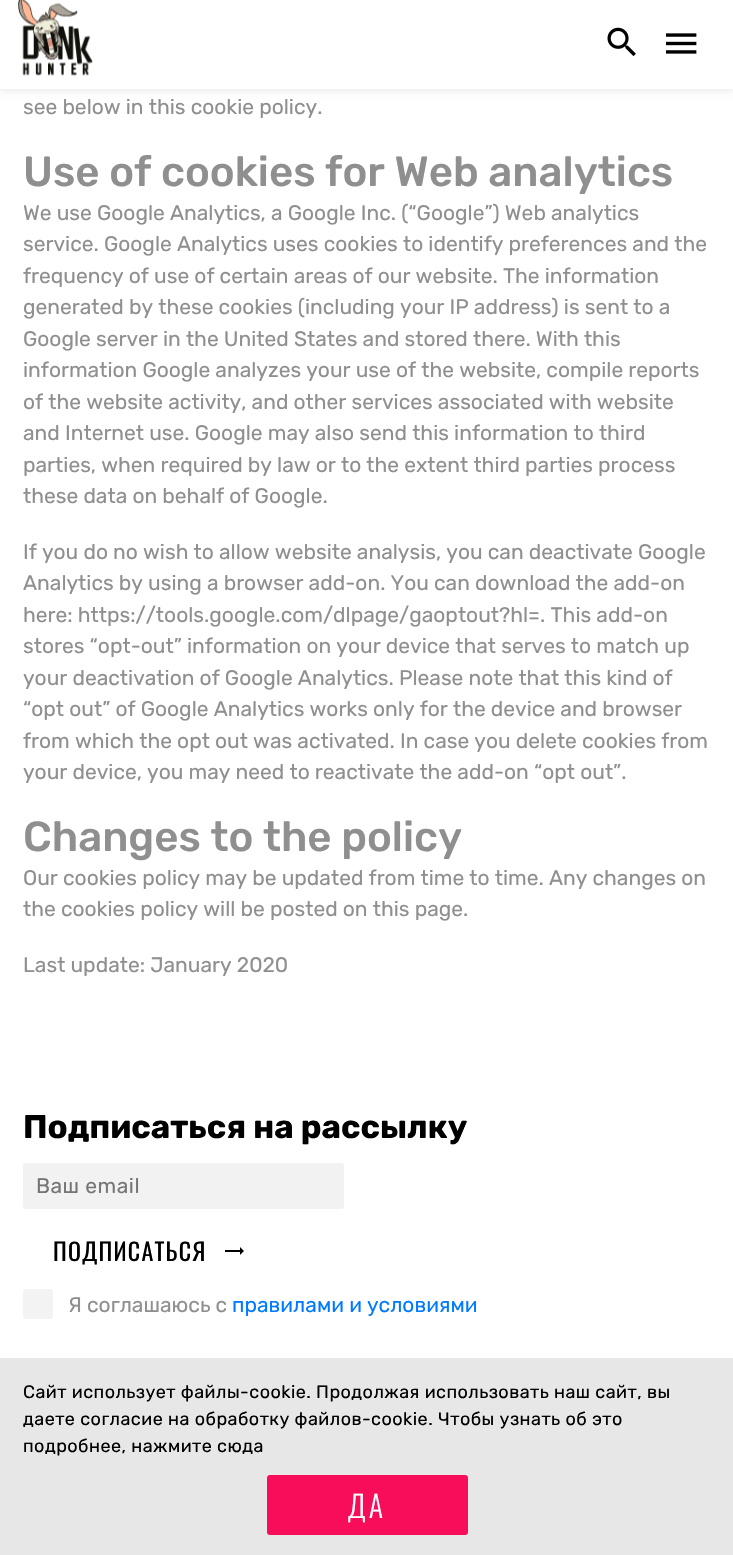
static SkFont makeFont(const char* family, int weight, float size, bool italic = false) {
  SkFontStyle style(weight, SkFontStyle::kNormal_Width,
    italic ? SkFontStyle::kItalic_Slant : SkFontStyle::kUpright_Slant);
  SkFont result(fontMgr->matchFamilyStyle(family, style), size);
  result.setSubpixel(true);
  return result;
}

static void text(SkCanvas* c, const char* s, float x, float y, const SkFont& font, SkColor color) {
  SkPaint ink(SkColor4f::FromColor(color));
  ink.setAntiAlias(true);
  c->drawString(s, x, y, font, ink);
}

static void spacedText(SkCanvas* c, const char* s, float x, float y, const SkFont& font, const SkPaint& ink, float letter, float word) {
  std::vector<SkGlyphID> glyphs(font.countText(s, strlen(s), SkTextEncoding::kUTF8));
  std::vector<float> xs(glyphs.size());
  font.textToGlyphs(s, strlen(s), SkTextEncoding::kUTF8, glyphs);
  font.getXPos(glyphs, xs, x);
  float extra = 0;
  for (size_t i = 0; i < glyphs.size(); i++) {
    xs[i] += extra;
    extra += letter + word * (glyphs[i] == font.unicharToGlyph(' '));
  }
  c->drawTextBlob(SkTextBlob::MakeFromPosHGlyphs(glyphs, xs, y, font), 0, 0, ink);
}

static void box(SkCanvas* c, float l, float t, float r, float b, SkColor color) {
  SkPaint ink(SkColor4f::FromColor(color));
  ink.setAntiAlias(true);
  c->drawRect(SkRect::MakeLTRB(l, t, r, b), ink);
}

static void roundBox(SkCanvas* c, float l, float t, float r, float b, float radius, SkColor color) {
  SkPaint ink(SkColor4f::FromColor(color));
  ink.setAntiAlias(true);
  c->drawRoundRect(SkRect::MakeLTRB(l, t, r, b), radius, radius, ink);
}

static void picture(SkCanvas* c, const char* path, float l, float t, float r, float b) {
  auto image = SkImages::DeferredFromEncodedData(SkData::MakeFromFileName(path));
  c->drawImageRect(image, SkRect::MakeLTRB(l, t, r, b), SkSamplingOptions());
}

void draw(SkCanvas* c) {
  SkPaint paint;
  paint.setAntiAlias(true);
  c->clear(0xffffffff);
  paint.setColor(0x1a000000);
  paint.setMaskFilter(SkMaskFilter::MakeBlur(kNormal_SkBlurStyle, 4));
  c->drawRect(SkRect::MakeLTRB(0, 2, 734, 90), paint);
  paint.setMaskFilter(nullptr);
  box(c, 0, 0, 733, 89, 0xffffffff);
  picture(c, "img_01.png", 18, 0, 93, 76);
  picture(c, "img_02.png", 607, 27, 636, 57);
  picture(c, "img_03.png", 666, 33, 697, 54);
  SkFont face1 = makeFont("Rubik", 400, 21);
  text(c, "see below in this cookie policy.", 23, 114, face1, 0xff8f8f8f);
  SkFont face2 = makeFont("Rubik", 500, 42);
  text(c, "Use of cookies for Web analytics", 23, 186, face2, 0xff8f8f8f);
  text(c, "We use Google Analytics, a Google Inc. (“Google”) Web analytics", 23, 220, face1, 0xff8f8f8f);
  text(c, "service. Google Analytics uses cookies to identify preferences and the", 23, 251, face1, 0xff8f8f8f);
  text(c, "frequency of use of certain areas of our website. The information", 23, 283, face1, 0xff8f8f8f);
  text(c, "generated by these cookies (including your IP address) is sent to a", 23, 314, face1, 0xff8f8f8f);
  text(c, "Google server in the United States and stored there. With this", 23, 346, face1, 0xff8f8f8f);
  text(c, "information Google analyzes your use of the website, compile reports", 23, 377, face1, 0xff8f8f8f);
  text(c, "of the website activity, and other services associated with website", 23, 409, face1, 0xff8f8f8f);
  text(c, "and Internet use. Google may also send this information to third", 23, 440, face1, 0xff8f8f8f);
  text(c, "parties, when required by law or to the extent third parties process", 23, 472, face1, 0xff8f8f8f);
  text(c, "these data on behalf of Google.", 23, 503, face1, 0xff8f8f8f);
  text(c, "If you do no wish to allow website analysis, you can deactivate Google", 23, 559, face1, 0xff8f8f8f);
  text(c, "Analytics by using a browser add-on. You can download the add-on", 23, 590, face1, 0xff8f8f8f);
  text(c, "here: https://tools.google.com/dlpage/gaoptout?hl=. This add-on", 23, 622, face1, 0xff8f8f8f);
  text(c, "stores “opt-out” information on your device that serves to match up", 23, 653, face1, 0xff8f8f8f);
  text(c, "your deactivation of Google Analytics. Please note that this kind of", 23, 685, face1, 0xff8f8f8f);
  text(c, "“opt out” of Google Analytics works only for the device and browser", 23, 716, face1, 0xff8f8f8f);
  text(c, "from which the opt out was activated. In case you delete cookies from", 23, 748, face1, 0xff8f8f8f);
  text(c, "your device, you may need to reactivate the add-on “opt out”.", 23, 779, face1, 0xff8f8f8f);
  text(c, "Changes to the policy", 23, 851, face2, 0xff8f8f8f);
  text(c, "Our cookies policy may be updated from time to time. Any changes on", 23, 885, face1, 0xff8f8f8f);
  text(c, "the cookies policy will be posted on this page.", 23, 916, face1, 0xff8f8f8f);
  text(c, "Last update: January 2020", 23, 972, face1, 0xff8f8f8f);
  SkFont face3 = makeFont("Rubik", 700, 33);
  text(c, "Подписаться на рассылку", 23, 1138, face3, 0xff000000);
  roundBox(c, 23, 1163, 344, 1209, 3, 0xfff2f2f2);
  paint.setColor(0xff757575);
  spacedText(c, "Ваш email", 36, 1193, face1, paint, 0.5f, 0);
  SkFont face4 = makeFont("Oswald", 400, 24);
  paint.setColor(0xff000000);
  spacedText(c, "ПОДПИСАТЬСЯ", 53, 1261, face4, paint, 1.25f, 0);
  picture(c, "img_04.png", 225, 1247, 244, 1255);
  roundBox(c, 23, 1289, 53, 1319, 3, 0xfff3f3f3);
  text(c, "Я соглашаюсь с", 68, 1312, face1, 0xff8f8f8f);
  text(c, "правилами и условиями", 232, 1312, face1, 0xff007bff);
  box(c, 0, 1358, 733, 1555, 0xffe7e7e7);
  SkFont face5 = makeFont("Rubik", 400, 18);
  spacedText(c, "Сайт использует файлы-cookie. Продолжая использовать наш сайт, вы", 23, 1398, face5, paint, 0.45f, 0);
  spacedText(c, "даете согласие на обработку файлов-cookie. Чтобы узнать об это", 23, 1425, face5, paint, 0.45f, 0);
  spacedText(c, "подробнее, нажмите сюда", 23, 1452, face5, paint, 0.45f, 0);
  roundBox(c, 267, 1475, 468, 1535, 3, 0xfff70d5a);
  SkFont face6 = makeFont("Oswald", 300, 30);
  paint.setColor(0xffffffff);
  spacedText(c, "ДА", 348, 1518, face6, paint, 3, 0);
}
